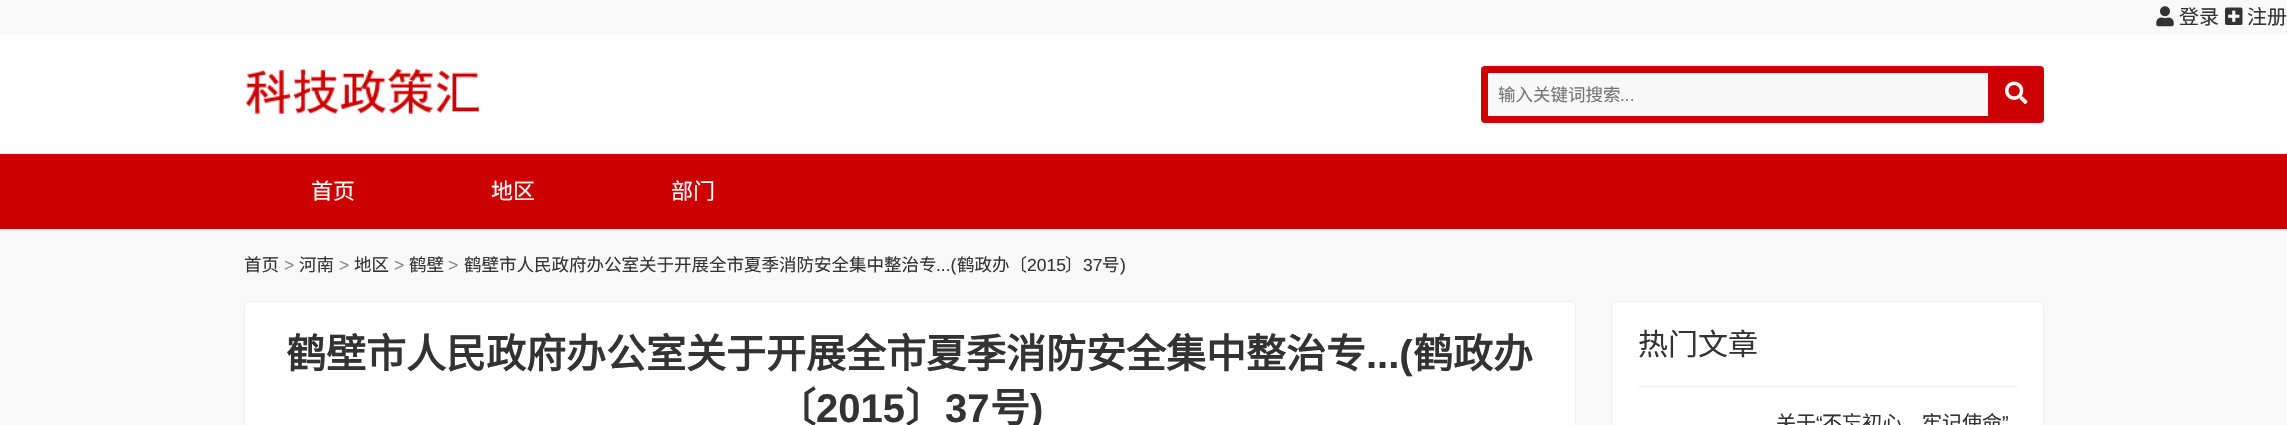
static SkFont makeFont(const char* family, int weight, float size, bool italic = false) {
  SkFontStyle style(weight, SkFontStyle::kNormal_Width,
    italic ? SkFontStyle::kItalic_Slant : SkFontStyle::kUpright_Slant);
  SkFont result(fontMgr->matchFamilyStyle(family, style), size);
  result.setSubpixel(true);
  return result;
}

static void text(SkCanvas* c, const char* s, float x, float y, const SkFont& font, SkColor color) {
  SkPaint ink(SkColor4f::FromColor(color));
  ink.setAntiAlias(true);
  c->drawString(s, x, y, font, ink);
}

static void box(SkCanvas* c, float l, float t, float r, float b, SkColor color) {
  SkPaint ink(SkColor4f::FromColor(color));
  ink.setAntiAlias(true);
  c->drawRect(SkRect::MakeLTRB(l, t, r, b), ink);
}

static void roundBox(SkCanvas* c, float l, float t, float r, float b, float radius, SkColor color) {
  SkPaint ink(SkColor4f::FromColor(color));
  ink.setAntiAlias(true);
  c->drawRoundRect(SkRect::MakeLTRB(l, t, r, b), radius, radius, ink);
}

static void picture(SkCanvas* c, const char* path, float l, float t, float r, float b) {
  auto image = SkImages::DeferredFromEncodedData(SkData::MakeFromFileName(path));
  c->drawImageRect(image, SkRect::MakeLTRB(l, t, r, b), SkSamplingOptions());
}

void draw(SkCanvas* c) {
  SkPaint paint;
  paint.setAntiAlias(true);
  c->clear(0xfff9f9f9);
  picture(c, "img_01.png", 2156, 6, 2174, 27);
  SkFont face1 = makeFont("Noto Sans CJK SC", 400, 20);
  text(c, "登录", 2179, 24, face1, 0xff333333);
  picture(c, "img_02.png", 2225, 7, 2243, 25);
  text(c, "注册", 2247, 24, face1, 0xff333333);
  box(c, 0, 35, 2287, 154, 0xffffffff);
  picture(c, "img_03.png", 246, 68, 479, 114);
  roundBox(c, 1481, 66, 2044, 123, 4, 0xffcc0000);
  box(c, 1488, 73, 1988, 116, 0xfff8f8f8);
  SkFont face2 = makeFont("Noto Sans CJK SC", 400, 17.5f);
  text(c, "输入关键词搜索", 1498, 101, face2, 0xff757575);
  SkFont face3 = makeFont("Liberation Sans", 400, 17.5f);
  text(c, "...", 1620, 101, face3, 0xff757575);
  picture(c, "img_04.png", 2005, 81, 2028, 104);
  box(c, 0, 154, 2287, 229, 0xffcc0000);
  SkFont face4 = makeFont("Noto Sans CJK SC", 400, 22);
  text(c, "首页", 311, 199, face4, 0xffffffff);
  text(c, "地区", 491, 199, face4, 0xffffffff);
  text(c, "部门", 671, 199, face4, 0xffffffff);
  text(c, "首页", 244, 271, face2, 0xff333333);
  text(c, ">", 284, 271, face3, 0xff888888);
  text(c, "河南", 299, 271, face2, 0xff333333);
  text(c, ">", 339, 271, face3, 0xff888888);
  text(c, "地区", 354, 271, face2, 0xff333333);
  text(c, ">", 394, 271, face3, 0xff888888);
  text(c, "鹤壁", 409, 271, face2, 0xff333333);
  text(c, ">", 448, 271, face3, 0xff888888);
  text(c, "鹤壁市人民政府办公室关于开展全市夏季消防安全集中整治专", 464, 271, face2, 0xff333333);
  text(c, "...(", 936, 271, face3, 0xff333333);
  text(c, "鹤政办〔", 957, 271, face2, 0xff333333);
  text(c, "2015", 1027, 271, face3, 0xff333333);
  text(c, "〕", 1065, 271, face2, 0xff333333);
  text(c, "37", 1083, 271, face3, 0xff333333);
  text(c, "号", 1102, 271, face2, 0xff333333);
  text(c, ")", 1120, 271, face3, 0xff333333);
  paint.setColor(0xffffffff);
  c->drawRoundRect(SkRect::MakeLTRB(244.5f, 301.5f, 1575.5f, 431.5f), 5.5f, 5.5f, paint);
  paint.setStyle(SkPaint::kStroke_Style);
  paint.setStrokeWidth(1);
  paint.setColor(0xffeeeeee);
  c->drawRoundRect(SkRect::MakeLTRB(244.5f, 301.5f, 1575.5f, 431.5f), 5.5f, 5.5f, paint);
  SkFont face5 = makeFont("Noto Sans CJK SC", 700, 40);
  text(c, "鹤壁市人民政府办公室关于开展全市夏季消防安全集中整治专", 286, 368, face5, 0xff333333);
  SkFont face6 = makeFont("Liberation Sans", 700, 40);
  text(c, "...(", 1366, 368, face6, 0xff333333);
  text(c, "鹤政办", 1413, 368, face5, 0xff333333);
  text(c, "〔", 776, 422, face5, 0xff333333);
  text(c, "2015", 816, 422, face6, 0xff333333);
  text(c, "〕", 905, 422, face5, 0xff333333);
  text(c, "37", 945, 422, face6, 0xff333333);
  text(c, "号", 990, 422, face5, 0xff333333);
  text(c, ")", 1030, 422, face6, 0xff333333);
  paint.setStyle(SkPaint::kFill_Style);
  paint.setColor(0xffffffff);
  c->drawRoundRect(SkRect::MakeLTRB(1611.5f, 301.5f, 2043.5f, 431.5f), 5.5f, 5.5f, paint);
  paint.setStyle(SkPaint::kStroke_Style);
  paint.setColor(0xffeeeeee);
  c->drawRoundRect(SkRect::MakeLTRB(1611.5f, 301.5f, 2043.5f, 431.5f), 5.5f, 5.5f, paint);
  SkFont face7 = makeFont("Noto Sans CJK SC", 400, 30);
  text(c, "热门文章", 1638, 355, face7, 0xff333333);
  box(c, 1638, 386, 2018, 387, 0xffeeeeee);
  text(c, "关于", 1776, 430, face1, 0xff333333);
  SkFont face8 = makeFont("Liberation Sans", 400, 20);
  text(c, "“", 1816, 430, face8, 0xff333333);
  text(c, "不忘初心、牢记使命", 1822, 430, face1, 0xff333333);
  text(c, "”", 2002, 430, face8, 0xff333333);
}
